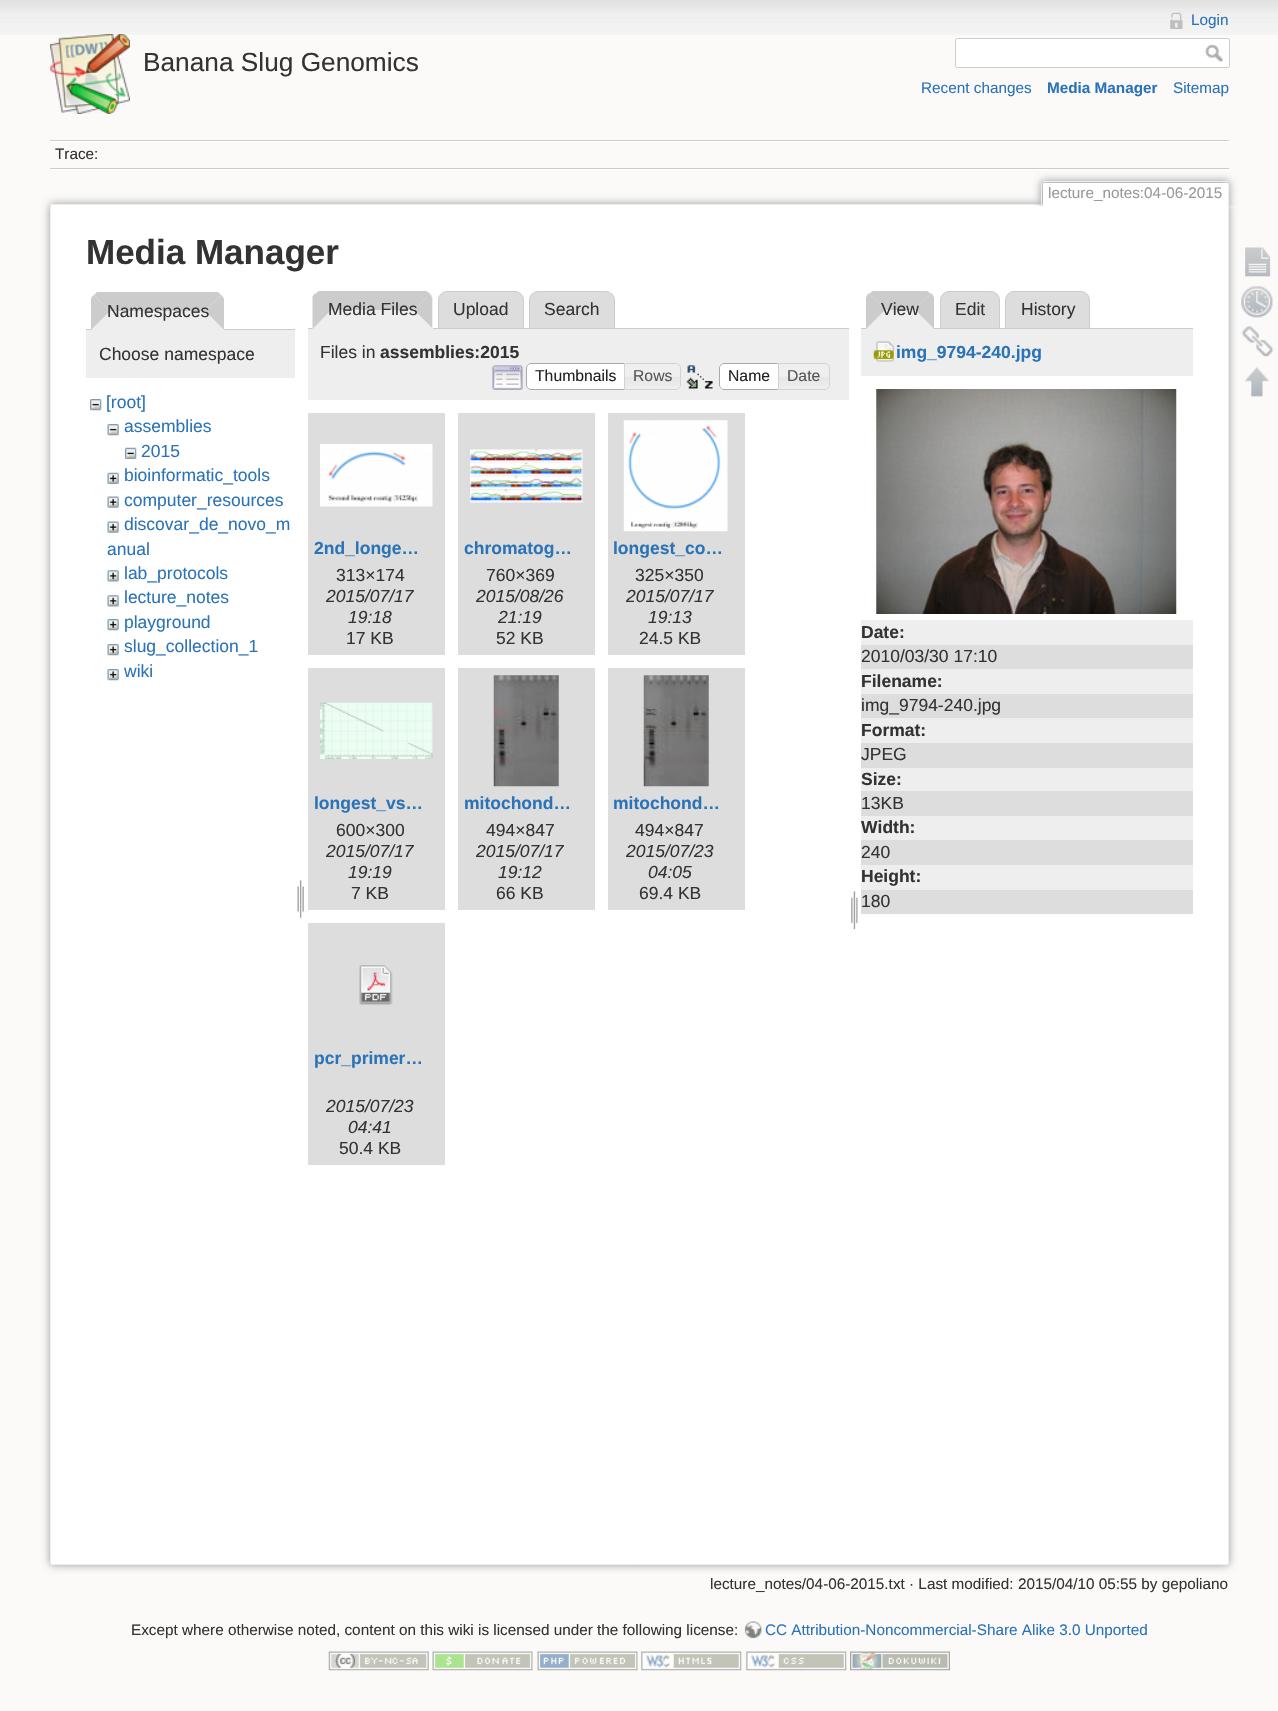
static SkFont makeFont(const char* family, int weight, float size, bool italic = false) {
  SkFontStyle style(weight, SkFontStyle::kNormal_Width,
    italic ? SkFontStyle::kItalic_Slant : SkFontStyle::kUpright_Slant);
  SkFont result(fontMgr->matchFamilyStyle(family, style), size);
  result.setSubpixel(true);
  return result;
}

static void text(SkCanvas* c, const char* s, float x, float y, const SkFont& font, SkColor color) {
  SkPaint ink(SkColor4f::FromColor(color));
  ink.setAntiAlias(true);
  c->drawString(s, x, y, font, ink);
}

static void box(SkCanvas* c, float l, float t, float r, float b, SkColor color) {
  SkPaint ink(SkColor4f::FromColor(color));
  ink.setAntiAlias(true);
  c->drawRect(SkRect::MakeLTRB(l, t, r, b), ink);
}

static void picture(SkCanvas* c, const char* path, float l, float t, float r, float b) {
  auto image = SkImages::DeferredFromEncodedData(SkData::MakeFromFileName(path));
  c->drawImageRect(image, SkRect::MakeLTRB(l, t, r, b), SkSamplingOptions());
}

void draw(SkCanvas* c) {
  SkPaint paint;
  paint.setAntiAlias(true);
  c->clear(0xfffbfaf9);
  picture(c, "img_01.png", 0, 0, 1278, 35);
  picture(c, "img_02.png", 50, 34, 130, 114);
  SkFont face1 = makeFont("Liberation Sans", 400, 26.25f);
  text(c, "Banana Slug Genomics", 143, 71, face1, 0xff333333);
  picture(c, "img_03.png", 1170, 12, 1183, 29);
  SkFont face2 = makeFont("Liberation Sans", 400, 15.3f);
  text(c, "Login", 1191, 25, face2, 0xff2b73b7);
  paint.setColor(0xffffffff);
  c->drawRoundRect(SkRect::MakeLTRB(955.5f, 38.5f, 1229.5f, 67.5f), 2, 2, paint);
  paint.setStyle(SkPaint::kStroke_Style);
  paint.setStrokeWidth(1);
  paint.setColor(0xffcccccc);
  c->drawRoundRect(SkRect::MakeLTRB(955.5f, 38.5f, 1229.5f, 67.5f), 2, 2, paint);
  picture(c, "img_04.png", 1205, 44, 1223, 62);
  text(c, "Recent changes", 921, 93, face2, 0xff2b73b7);
  SkFont face3 = makeFont("Liberation Sans", 700, 15.3f);
  text(c, "Media Manager", 1047, 93, face3, 0xff2b73b7);
  text(c, "Sitemap", 1173, 93, face2, 0xff2b73b7);
  box(c, 50, 140, 1229, 141, 0xffcccccc);
  box(c, 50, 169, 1229, 170, 0xffffffff);
  box(c, 50, 141, 1229, 142, 0xffffffff);
  box(c, 50, 168, 1229, 169, 0xffcccccc);
  text(c, "Trace:", 55, 159, face2, 0xff333333);
  paint.setStyle(SkPaint::kFill_Style);
  paint.setColor(0xff999999);
  paint.setMaskFilter(SkMaskFilter::MakeBlur(kNormal_SkBlurStyle, 4.5f));
  c->drawRoundRect(SkRect::MakeLTRB(50, 204, 1229, 1565), 2.5f, 2.5f, paint);
  paint.setMaskFilter(nullptr);
  paint.setColor(0xffffffff);
  c->drawRoundRect(SkRect::MakeLTRB(50.5f, 204.5f, 1228.5f, 1564.5f), 2, 2, paint);
  paint.setStyle(SkPaint::kStroke_Style);
  paint.setColor(0xffeeeeee);
  c->drawRoundRect(SkRect::MakeLTRB(50.5f, 204.5f, 1228.5f, 1564.5f), 2, 2, paint);
  c->save();
  c->clipRect(SkRect::MakeLTRB(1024, 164, 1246, 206));
  paint.setStyle(SkPaint::kFill_Style);
  paint.setColor(0xff999999);
  paint.setMaskFilter(SkMaskFilter::MakeBlur(kNormal_SkBlurStyle, 4));
  c->drawRoundRect(SkRect::MakeLTRB(1041, 181, 1229, 206), 2.5f, 2.5f, paint);
  paint.setMaskFilter(nullptr);
  c->restore();
  paint.setColor(0xffffffff);
  c->drawPath(SkPathBuilder().moveTo(1044, 183).lineTo(1227, 183).cubicTo(1227.5f, 183, 1228, 183.5f, 1228, 184).lineTo(1228, 206).lineTo(1043, 206).lineTo(1043, 184).cubicTo(1043, 183.5f, 1043.5f, 183, 1044, 183).close().detach(), paint);
  box(c, 1043, 181, 1228, 182, 0xffeeeeee);
  box(c, 1228, 183, 1229, 206, 0xffeeeeee);
  box(c, 1041, 183, 1042, 206, 0xffeeeeee);
  text(c, "lecture_notes:04-06-2015", 1048, 198, face2, 0xff999999);
  SkFont face4 = makeFont("Liberation Sans", 700, 35);
  text(c, "Media Manager", 86, 264, face4, 0xff333333);
  box(c, 86, 329, 295, 330, 0xffcccccc);
  paint.setColor(0xffeeeeee);
  c->drawPath(SkPathBuilder().moveTo(100, 293).lineTo(215, 293).cubicTo(220, 293, 224, 297, 224, 302).lineTo(224, 330).lineTo(91, 330).lineTo(91, 302).cubicTo(91, 297, 95, 293, 100, 293).close().detach(), paint);
  paint.setColor(0xffcccccc);
  c->drawPath(SkPathBuilder().moveTo(218, 292).lineTo(97, 292).lineTo(94, 295).lineTo(110, 311).lineTo(205, 311).lineTo(221, 295).close().detach(), paint);
  c->drawPath(SkPathBuilder().moveTo(221.5f, 295).lineTo(205, 311).lineTo(224, 330).lineTo(224, 299).cubicTo(223.5f, 297.5f, 222.5f, 296, 221.5f, 295).close().detach(), paint);
  paint.setColor(0xffeeeeee);
  c->drawPath(SkPathBuilder().moveTo(224, 330).lineTo(205, 311).lineTo(110, 311).lineTo(91, 330).close().detach(), paint);
  paint.setColor(0xffcccccc);
  c->drawPath(SkPathBuilder().moveTo(91, 330).lineTo(110, 311).lineTo(93.5f, 295).cubicTo(92.5f, 296, 91.5f, 297.5f, 91, 299).close().detach(), paint);
  SkFont face5 = makeFont("Liberation Sans", 400, 17.5f);
  text(c, "Namespaces", 107, 317, face5, 0xff333333);
  box(c, 86, 330, 295, 378, 0xffeeeeee);
  text(c, "Choose namespace", 99, 360, face5, 0xff333333);
  picture(c, "img_05.png", 90, 399, 102, 411);
  text(c, "[root]", 106, 408, face5, 0xff2b73b7);
  picture(c, "img_06.png", 107, 424, 119, 436);
  text(c, "assemblies", 124, 432, face5, 0xff2b73b7);
  picture(c, "img_07.png", 125, 447, 137, 459);
  text(c, "2015", 141, 457, face5, 0xff2b73b7);
  picture(c, "img_08.png", 107, 472, 119, 484);
  text(c, "bioinformatic_tools", 124, 481, face5, 0xff2b73b7);
  picture(c, "img_09.png", 107, 496, 119, 508);
  text(c, "computer_resources", 124, 506, face5, 0xff2b73b7);
  picture(c, "img_09.png", 107, 521, 119, 533);
  text(c, "discovar_de_novo_m", 124, 530, face5, 0xff2b73b7);
  text(c, "anual", 107, 555, face5, 0xff2b73b7);
  picture(c, "img_10.png", 107, 570, 119, 582);
  text(c, "lab_protocols", 124, 579, face5, 0xff2b73b7);
  picture(c, "img_10.png", 107, 595, 119, 607);
  text(c, "lecture_notes", 124, 603, face5, 0xff2b73b7);
  picture(c, "img_11.png", 107, 619, 119, 631);
  text(c, "playground", 124, 628, face5, 0xff2b73b7);
  picture(c, "img_11.png", 107, 644, 119, 656);
  text(c, "slug_collection_1", 124, 652, face5, 0xff2b73b7);
  picture(c, "img_11.png", 107, 669, 119, 681);
  text(c, "wiki", 124, 677, face5, 0xff2b73b7);
  picture(c, "img_12.png", 297, 879, 304, 918);
  paint.setColor(0xffdddddd);
  c->drawPath(SkPathBuilder().moveTo(447, 291.5f).lineTo(515, 291.5f).cubicTo(519.5f, 291.5f, 523.5f, 295.5f, 523.5f, 300).lineTo(523.5f, 328.5f).lineTo(438.5f, 328.5f).lineTo(438.5f, 300).cubicTo(438.5f, 295.5f, 442.5f, 291.5f, 447, 291.5f).close().detach(), paint);
  paint.setStyle(SkPaint::kStroke_Style);
  paint.setColor(0xffcccccc);
  c->drawPath(SkPathBuilder().moveTo(447, 291.5f).lineTo(515, 291.5f).cubicTo(519.5f, 291.5f, 523.5f, 295.5f, 523.5f, 300).lineTo(523.5f, 328.5f).lineTo(438.5f, 328.5f).lineTo(438.5f, 300).cubicTo(438.5f, 295.5f, 442.5f, 291.5f, 447, 291.5f).close().detach(), paint);
  paint.setStyle(SkPaint::kFill_Style);
  paint.setColor(0xffdddddd);
  c->drawPath(SkPathBuilder().moveTo(538, 291.5f).lineTo(606, 291.5f).cubicTo(610.5f, 291.5f, 614.5f, 295.5f, 614.5f, 300).lineTo(614.5f, 328.5f).lineTo(529.5f, 328.5f).lineTo(529.5f, 300).cubicTo(529.5f, 295.5f, 533.5f, 291.5f, 538, 291.5f).close().detach(), paint);
  paint.setStyle(SkPaint::kStroke_Style);
  paint.setColor(0xffcccccc);
  c->drawPath(SkPathBuilder().moveTo(538, 291.5f).lineTo(606, 291.5f).cubicTo(610.5f, 291.5f, 614.5f, 295.5f, 614.5f, 300).lineTo(614.5f, 328.5f).lineTo(529.5f, 328.5f).lineTo(529.5f, 300).cubicTo(529.5f, 295.5f, 533.5f, 291.5f, 538, 291.5f).close().detach(), paint);
  box(c, 308, 328, 849, 329, 0xffcccccc);
  paint.setStyle(SkPaint::kFill_Style);
  paint.setColor(0xffeeeeee);
  c->drawPath(SkPathBuilder().moveTo(322, 291).lineTo(424, 291).cubicTo(429, 291, 433, 295, 433, 300).lineTo(433, 329).lineTo(313, 329).lineTo(313, 300).cubicTo(313, 295, 317, 291, 322, 291).close().detach(), paint);
  paint.setColor(0xffcccccc);
  c->drawPath(SkPathBuilder().moveTo(426, 291).lineTo(319, 291).lineTo(315, 294).lineTo(331, 310).lineTo(414, 310).lineTo(430, 294).cubicTo(429, 293, 428, 292, 426, 291).close().detach(), paint);
  c->drawPath(SkPathBuilder().moveTo(430, 294).lineTo(414, 310).lineTo(432, 328).lineTo(432, 300).cubicTo(432, 297.5f, 431.5f, 295.5f, 430, 294).close().detach(), paint);
  paint.setColor(0xffeeeeee);
  c->drawPath(SkPathBuilder().moveTo(432, 328).lineTo(414, 310).lineTo(331, 310).lineTo(312, 329).lineTo(432, 329).close().detach(), paint);
  paint.setColor(0xffcccccc);
  c->drawPath(SkPathBuilder().moveTo(312.5f, 329).lineTo(331, 310).lineTo(315, 293.5f).cubicTo(313.5f, 294.5f, 313, 295.5f, 312.5f, 297).close().detach(), paint);
  text(c, "Media Files", 328, 315, face5, 0xff333333);
  text(c, "Upload", 453, 315, face5, 0xff333333);
  text(c, "Search", 544, 315, face5, 0xff333333);
  box(c, 308, 329, 849, 400, 0xffeeeeee);
  text(c, "Files in", 320, 358, face5, 0xff333333);
  SkFont face6 = makeFont("Liberation Sans", 700, 17.5f);
  text(c, "assemblies:2015", 380, 358, face6, 0xff333333);
  picture(c, "img_13.png", 492, 365, 523, 390);
  paint.setColor(0xffffffff);
  c->drawPath(SkPathBuilder().moveTo(531, 363).lineTo(625, 363).lineTo(625, 390).lineTo(531, 390).cubicTo(528, 390, 526, 388, 526, 385).lineTo(526, 368).cubicTo(526, 365, 528, 363, 531, 363).close().detach(), paint);
  picture(c, "img_14.png", 527, 363, 530, 365);
  paint.setStyle(SkPaint::kStroke_Style);
  paint.setColor(0xffaaaaaa);
  c->drawPath(SkPathBuilder().moveTo(531, 363.5f).lineTo(624.5f, 363.5f).lineTo(624.5f, 389.5f).lineTo(531, 389.5f).cubicTo(528.5f, 389.5f, 526.5f, 387.5f, 526.5f, 385).lineTo(526.5f, 368).cubicTo(526.5f, 365.5f, 528.5f, 363.5f, 531, 363.5f).close().detach(), paint);
  SkFont face7 = makeFont("Liberation Sans", 400, 15.75f);
  text(c, "Thumbnails", 535, 381, face7, 0xff212121);
  picture(c, "img_15.png", 623, 363, 681, 390);
  paint.setColor(0xffd3d3d3);
  c->drawPath(SkPathBuilder().moveTo(624.5f, 363.5f).lineTo(676, 363.5f).cubicTo(678.5f, 363.5f, 680.5f, 365.5f, 680.5f, 368).lineTo(680.5f, 385).cubicTo(680.5f, 387.5f, 678.5f, 389.5f, 676, 389.5f).lineTo(624.5f, 389.5f).close().detach(), paint);
  text(c, "Rows", 633, 381, face7, 0xff555555);
  picture(c, "img_16.png", 686, 365, 713, 389);
  paint.setStyle(SkPaint::kFill_Style);
  paint.setColor(0xffffffff);
  c->drawPath(SkPathBuilder().moveTo(724, 363).lineTo(779, 363).lineTo(779, 390).lineTo(724, 390).cubicTo(721, 390, 719, 388, 719, 385).lineTo(719, 368).cubicTo(719, 365, 721, 363, 724, 363).close().detach(), paint);
  picture(c, "img_17.png", 719, 363, 723, 390);
  paint.setStyle(SkPaint::kStroke_Style);
  paint.setColor(0xffaaaaaa);
  c->drawPath(SkPathBuilder().moveTo(724, 363.5f).lineTo(778.5f, 363.5f).lineTo(778.5f, 389.5f).lineTo(724, 389.5f).cubicTo(721.5f, 389.5f, 719.5f, 387.5f, 719.5f, 385).lineTo(719.5f, 368).cubicTo(719.5f, 365.5f, 721.5f, 363.5f, 724, 363.5f).close().detach(), paint);
  text(c, "Name", 728, 381, face7, 0xff212121);
  picture(c, "img_18.png", 777, 363, 830, 390);
  paint.setColor(0xffd3d3d3);
  c->drawPath(SkPathBuilder().moveTo(778.5f, 363.5f).lineTo(825, 363.5f).cubicTo(827.5f, 363.5f, 829.5f, 365.5f, 829.5f, 368).lineTo(829.5f, 385).cubicTo(829.5f, 387.5f, 827.5f, 389.5f, 825, 389.5f).lineTo(778.5f, 389.5f).close().detach(), paint);
  text(c, "Date", 787, 381, face7, 0xff555555);
  box(c, 308, 413, 445, 655, 0xffdddddd);
  picture(c, "img_19.png", 320, 444, 433, 507);
  text(c, "2nd_longe…", 314, 554, face6, 0xff2b73b7);
  text(c, "313×174", 336, 581, face5, 0xff333333);
  SkFont face8 = makeFont("Liberation Sans", 400, 17.5f, true);
  text(c, "2015/07/17", 326, 602, face8, 0xff333333);
  text(c, "19:18", 348, 623, face8, 0xff333333);
  text(c, "17 KB", 346, 644, face5, 0xff333333);
  box(c, 458, 413, 595, 655, 0xffdddddd);
  picture(c, "img_20.png", 470, 449, 583, 503);
  text(c, "chromatog…", 464, 554, face6, 0xff2b73b7);
  text(c, "760×369", 486, 581, face5, 0xff333333);
  text(c, "2015/08/26", 476, 602, face8, 0xff333333);
  text(c, "21:19", 498, 623, face8, 0xff333333);
  text(c, "52 KB", 496, 644, face5, 0xff333333);
  box(c, 608, 413, 745, 655, 0xffdddddd);
  picture(c, "img_21.png", 623, 420, 728, 532);
  text(c, "longest_co…", 613, 554, face6, 0xff2b73b7);
  text(c, "325×350", 635, 581, face5, 0xff333333);
  text(c, "2015/07/17", 626, 602, face8, 0xff333333);
  text(c, "19:13", 648, 623, face8, 0xff333333);
  text(c, "24.5 KB", 639, 644, face5, 0xff333333);
  box(c, 308, 668, 445, 910, 0xffdddddd);
  picture(c, "img_22.png", 320, 702, 433, 759);
  text(c, "longest_vs…", 314, 809, face6, 0xff2b73b7);
  text(c, "600×300", 336, 836, face5, 0xff333333);
  text(c, "2015/07/17", 326, 857, face8, 0xff333333);
  text(c, "19:19", 348, 878, face8, 0xff333333);
  text(c, "7 KB", 351, 899, face5, 0xff333333);
  box(c, 458, 668, 595, 910, 0xffdddddd);
  picture(c, "img_23.png", 493, 675, 559, 787);
  text(c, "mitochond…", 464, 809, face6, 0xff2b73b7);
  text(c, "494×847", 486, 836, face5, 0xff333333);
  text(c, "2015/07/17", 476, 857, face8, 0xff333333);
  text(c, "19:12", 498, 878, face8, 0xff333333);
  text(c, "66 KB", 496, 899, face5, 0xff333333);
  box(c, 608, 668, 745, 910, 0xffdddddd);
  picture(c, "img_24.png", 643, 675, 709, 787);
  text(c, "mitochond…", 613, 809, face6, 0xff2b73b7);
  text(c, "494×847", 635, 836, face5, 0xff333333);
  text(c, "2015/07/23", 626, 857, face8, 0xff333333);
  text(c, "04:05", 648, 878, face8, 0xff333333);
  text(c, "69.4 KB", 639, 899, face5, 0xff333333);
  box(c, 308, 923, 445, 1165, 0xffdddddd);
  picture(c, "img_25.png", 359, 965, 393, 1005);
  text(c, "pcr_primer…", 314, 1064, face6, 0xff2b73b7);
  text(c, "2015/07/23", 326, 1112, face8, 0xff333333);
  text(c, "04:41", 348, 1133, face8, 0xff333333);
  text(c, "50.4 KB", 339, 1154, face5, 0xff333333);
  picture(c, "img_26.png", 851, 890, 858, 930);
  paint.setStyle(SkPaint::kFill_Style);
  paint.setColor(0xffdddddd);
  c->drawPath(SkPathBuilder().moveTo(949, 291.5f).lineTo(991, 291.5f).cubicTo(995.5f, 291.5f, 999.5f, 295.5f, 999.5f, 300).lineTo(999.5f, 328.5f).lineTo(940.5f, 328.5f).lineTo(940.5f, 300).cubicTo(940.5f, 295.5f, 944.5f, 291.5f, 949, 291.5f).close().detach(), paint);
  paint.setStyle(SkPaint::kStroke_Style);
  paint.setColor(0xffcccccc);
  c->drawPath(SkPathBuilder().moveTo(949, 291.5f).lineTo(991, 291.5f).cubicTo(995.5f, 291.5f, 999.5f, 295.5f, 999.5f, 300).lineTo(999.5f, 328.5f).lineTo(940.5f, 328.5f).lineTo(940.5f, 300).cubicTo(940.5f, 295.5f, 944.5f, 291.5f, 949, 291.5f).close().detach(), paint);
  paint.setStyle(SkPaint::kFill_Style);
  paint.setColor(0xffdddddd);
  c->drawPath(SkPathBuilder().moveTo(1014, 291.5f).lineTo(1081, 291.5f).cubicTo(1085.5f, 291.5f, 1089.5f, 295.5f, 1089.5f, 300).lineTo(1089.5f, 328.5f).lineTo(1005.5f, 328.5f).lineTo(1005.5f, 300).cubicTo(1005.5f, 295.5f, 1009.5f, 291.5f, 1014, 291.5f).close().detach(), paint);
  paint.setStyle(SkPaint::kStroke_Style);
  paint.setColor(0xffcccccc);
  c->drawPath(SkPathBuilder().moveTo(1014, 291.5f).lineTo(1081, 291.5f).cubicTo(1085.5f, 291.5f, 1089.5f, 295.5f, 1089.5f, 300).lineTo(1089.5f, 328.5f).lineTo(1005.5f, 328.5f).lineTo(1005.5f, 300).cubicTo(1005.5f, 295.5f, 1009.5f, 291.5f, 1014, 291.5f).close().detach(), paint);
  box(c, 861, 328, 1193, 329, 0xffcccccc);
  paint.setStyle(SkPaint::kFill_Style);
  paint.setColor(0xffeeeeee);
  c->drawPath(SkPathBuilder().moveTo(875, 291).lineTo(925, 291).cubicTo(930, 291, 934, 295, 934, 300).lineTo(934, 329).lineTo(866, 329).lineTo(866, 300).cubicTo(866, 295, 870, 291, 875, 291).close().detach(), paint);
  paint.setColor(0xffcccccc);
  c->drawPath(SkPathBuilder().moveTo(927, 291).lineTo(873, 291).lineTo(869, 294).lineTo(885, 310).lineTo(915, 310).lineTo(931, 294).close().detach(), paint);
  c->drawPath(SkPathBuilder().moveTo(931.5f, 293.5f).lineTo(915, 310).lineTo(934, 329).lineTo(934, 298).cubicTo(933.5f, 296, 932.5f, 295, 931.5f, 293.5f).close().detach(), paint);
  paint.setColor(0xffeeeeee);
  c->drawPath(SkPathBuilder().moveTo(934, 329).lineTo(915, 310).lineTo(885, 310).lineTo(866, 329).close().detach(), paint);
  paint.setColor(0xffcccccc);
  c->drawPath(SkPathBuilder().moveTo(866, 329).lineTo(885, 310).lineTo(868.5f, 293.5f).cubicTo(867.5f, 295, 866.5f, 296, 866, 298).close().detach(), paint);
  text(c, "View", 881, 315, face5, 0xff333333);
  text(c, "Edit", 955, 315, face5, 0xff333333);
  text(c, "History", 1021, 315, face5, 0xff333333);
  box(c, 861, 329, 1193, 376, 0xffeeeeee);
  picture(c, "img_27.png", 873, 341, 894, 362);
  text(c, "img_9794-240.jpg", 896, 358, face6, 0xff2b73b7);
  picture(c, "img_28.png", 876, 389, 1177, 614);
  box(c, 861, 620, 1193, 645, 0xffeeeeee);
  text(c, "Date:", 861, 638, face6, 0xff333333);
  box(c, 861, 645, 1193, 669, 0xffdddddd);
  text(c, "2010/03/30 17:10", 861, 662, face5, 0xff333333);
  box(c, 861, 669, 1193, 694, 0xffeeeeee);
  text(c, "Filename:", 861, 687, face6, 0xff333333);
  box(c, 861, 694, 1193, 718, 0xffdddddd);
  text(c, "img_9794-240.jpg", 861, 711, face5, 0xff333333);
  box(c, 861, 718, 1193, 743, 0xffeeeeee);
  text(c, "Format:", 861, 736, face6, 0xff333333);
  box(c, 861, 743, 1193, 768, 0xffdddddd);
  text(c, "JPEG", 861, 760, face5, 0xff333333);
  box(c, 861, 768, 1193, 791, 0xffeeeeee);
  text(c, "Size:", 861, 785, face6, 0xff333333);
  box(c, 861, 791, 1193, 816, 0xffdddddd);
  text(c, "13KB", 861, 809, face5, 0xff333333);
  box(c, 861, 816, 1193, 840, 0xffeeeeee);
  text(c, "Width:", 861, 833, face6, 0xff333333);
  box(c, 861, 840, 1193, 865, 0xffdddddd);
  text(c, "240", 861, 858, face5, 0xff333333);
  box(c, 861, 865, 1193, 890, 0xffeeeeee);
  text(c, "Height:", 861, 882, face6, 0xff333333);
  box(c, 861, 890, 1193, 914, 0xffdddddd);
  text(c, "180", 861, 907, face5, 0xff333333);
  text(c, "lecture_notes/04-06-2015.txt · Last modified: 2015/04/10 05:55 by gepoliano", 710, 1589, face2, 0xff333333);
  picture(c, "img_29.png", 1245, 247, 1271, 277);
  picture(c, "img_30.png", 1241, 286, 1273, 318);
  picture(c, "img_31.png", 1242, 326, 1273, 357);
  picture(c, "img_32.png", 1245, 367, 1269, 397);
  text(c, "Except where otherwise noted, content on this wiki is licensed under the following license:", 131, 1635, face2, 0xff333333);
  picture(c, "img_33.png", 744, 1621, 762, 1639);
  text(c, "CC Attribution-Noncommercial-Share Alike 3.0 Unported", 765, 1635, face2, 0xff2b73b7);
  picture(c, "img_34.png", 328, 1651, 429, 1671);
  picture(c, "img_35.png", 432, 1651, 533, 1671);
  picture(c, "img_36.png", 537, 1651, 638, 1671);
  picture(c, "img_37.png", 641, 1651, 742, 1671);
  picture(c, "img_38.png", 746, 1651, 847, 1671);
  picture(c, "img_39.png", 850, 1651, 950, 1671);
}
